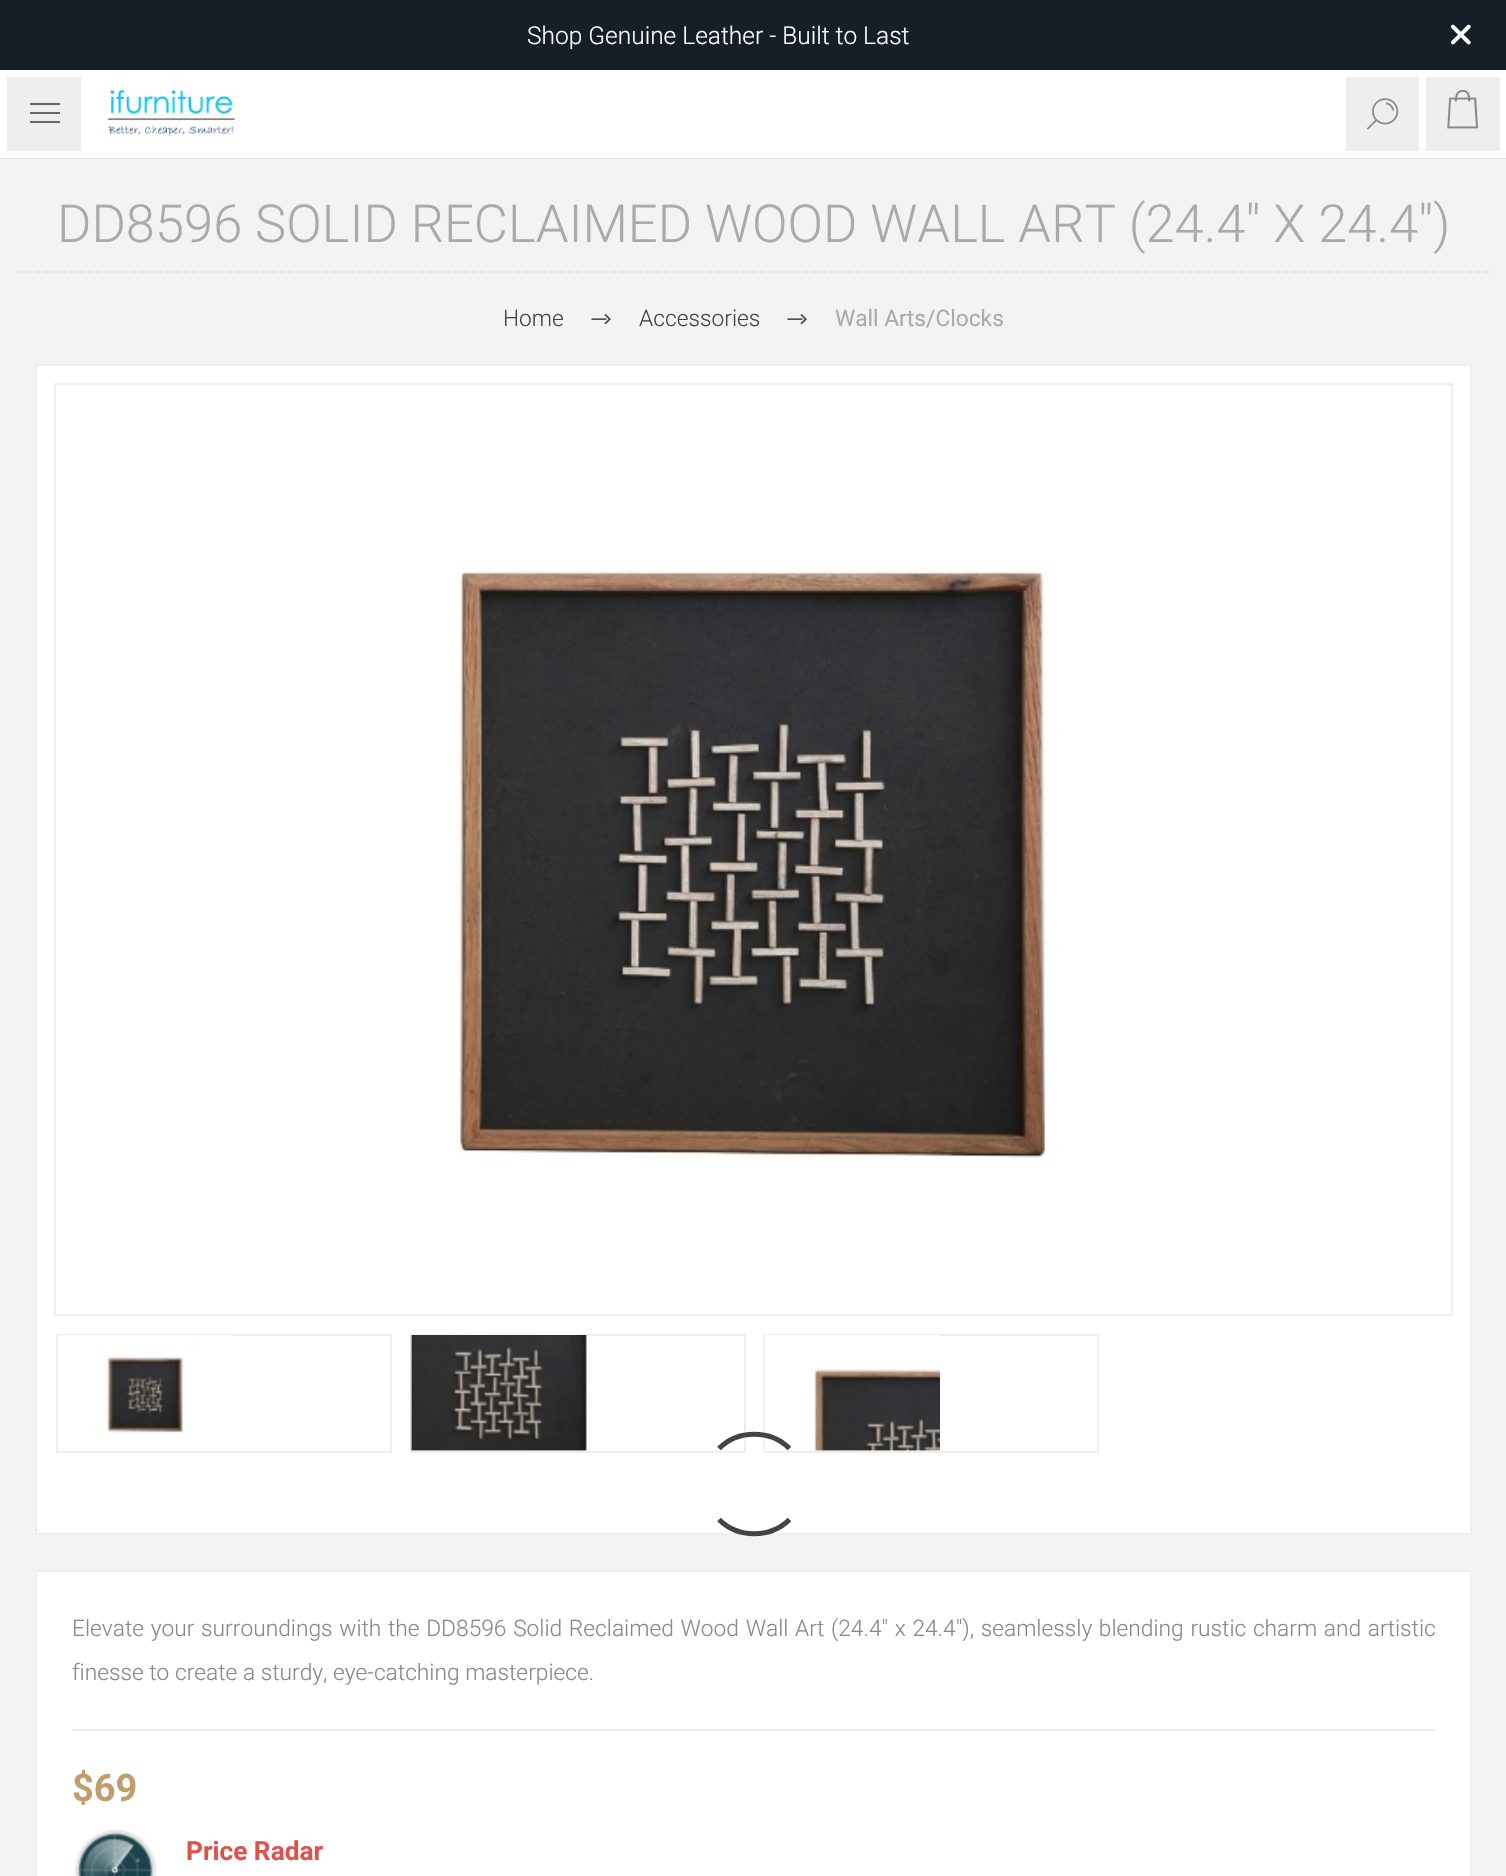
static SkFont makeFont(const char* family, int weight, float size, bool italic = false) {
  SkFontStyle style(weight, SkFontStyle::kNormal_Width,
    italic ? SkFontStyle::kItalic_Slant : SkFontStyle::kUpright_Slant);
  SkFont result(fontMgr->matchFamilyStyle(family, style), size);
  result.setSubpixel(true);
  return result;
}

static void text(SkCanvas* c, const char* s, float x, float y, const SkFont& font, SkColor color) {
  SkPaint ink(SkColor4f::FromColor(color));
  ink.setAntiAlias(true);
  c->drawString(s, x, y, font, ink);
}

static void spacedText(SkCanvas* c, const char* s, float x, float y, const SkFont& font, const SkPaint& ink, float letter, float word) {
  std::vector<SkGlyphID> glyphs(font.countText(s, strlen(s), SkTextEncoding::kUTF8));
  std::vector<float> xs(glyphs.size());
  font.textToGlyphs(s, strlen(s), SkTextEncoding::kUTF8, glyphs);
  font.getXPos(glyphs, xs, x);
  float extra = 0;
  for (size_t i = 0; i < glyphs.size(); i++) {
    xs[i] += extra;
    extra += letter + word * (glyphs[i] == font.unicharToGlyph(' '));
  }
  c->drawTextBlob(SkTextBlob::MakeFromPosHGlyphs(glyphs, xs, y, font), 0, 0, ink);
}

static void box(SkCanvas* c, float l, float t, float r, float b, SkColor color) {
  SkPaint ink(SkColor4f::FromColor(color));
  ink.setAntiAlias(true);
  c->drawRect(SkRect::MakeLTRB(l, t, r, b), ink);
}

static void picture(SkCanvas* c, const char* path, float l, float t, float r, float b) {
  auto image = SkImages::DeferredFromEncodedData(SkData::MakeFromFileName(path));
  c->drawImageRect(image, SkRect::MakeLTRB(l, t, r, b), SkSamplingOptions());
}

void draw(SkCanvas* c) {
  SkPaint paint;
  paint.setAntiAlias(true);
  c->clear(0xfff3f3f3);
  box(c, 0, 0, 1506, 70, 0xff161f28);
  SkFont face1 = makeFont("Roboto", 300, 24.5f);
  text(c, "Shop Genuine Leather - Built to Last", 527, 44, face1, 0xffffffff);
  picture(c, "img_01.png", 1451, 24, 1471, 45);
  paint.setColor(0xffe3e3e3);
  c->drawPath(SkPathBuilder().moveTo(0, 158).lineTo(0, 159).lineTo(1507, 159).lineTo(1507, 72).lineTo(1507, 158).close().detach(), paint);
  box(c, 88, 70, 1419, 158, 0xffffffff);
  picture(c, "img_02.png", 105, 87, 236, 137);
  box(c, 1346, 77, 1419, 151, 0xffeeeeee);
  picture(c, "img_03.png", 1366, 98, 1399, 130);
  paint.setColor(0xffeeeeee);
  c->drawRect(SkRect::MakeLTRB(3.5f, 73.5f, 84.5f, 154.5f), paint);
  paint.setStyle(SkPaint::kStroke_Style);
  paint.setStrokeWidth(7);
  paint.setColor(0xffffffff);
  c->drawRect(SkRect::MakeLTRB(3.5f, 73.5f, 84.5f, 154.5f), paint);
  box(c, 30, 103, 60, 105, 0xff666666);
  box(c, 30, 112, 60, 114, 0xff666666);
  box(c, 30, 121, 60, 123, 0xff666666);
  paint.setStyle(SkPaint::kFill_Style);
  paint.setColor(0xffeeeeee);
  c->drawRect(SkRect::MakeLTRB(1422.5f, 73.5f, 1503.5f, 154.5f), paint);
  paint.setStyle(SkPaint::kStroke_Style);
  paint.setColor(0xffffffff);
  c->drawRect(SkRect::MakeLTRB(1422.5f, 73.5f, 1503.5f, 154.5f), paint);
  picture(c, "img_04.png", 1447, 89, 1478, 129);
  paint.setStrokeWidth(1.8f);
  paint.setColor(0xffe6e6e6);
  paint.setPathEffect(SkDashPathEffect::Make({{5.25f, 3.48f}}, 0));
  c->drawPath(SkPathBuilder().moveTo(17.5f, 272).lineTo(1489, 272).detach(), paint);
  paint.setPathEffect(nullptr);
  SkFont face2 = makeFont("Roboto", 300, 52.5f);
  text(c, "DD8596 SOLID RECLAIMED WOOD WALL ART (24.4\" X 24.4\")", 57, 242, face2, 0xffaaaaaa);
  SkFont face3 = makeFont("Roboto", 300, 22.75f);
  text(c, "Home", 503, 326, face3, 0xff444444);
  picture(c, "img_05.png", 591, 314, 611, 325);
  text(c, "Accessories", 639, 326, face3, 0xff444444);
  picture(c, "img_05.png", 787, 314, 807, 325);
  SkFont face4 = makeFont("Roboto", 400, 22.75f);
  text(c, "Wall Arts/Clocks", 835, 326, face4, 0xffaaaaaa);
  paint.setStyle(SkPaint::kFill_Style);
  paint.setColor(0xffffffff);
  c->drawRect(SkRect::MakeLTRB(36, 365, 1471, 1534), paint);
  paint.setStyle(SkPaint::kStroke_Style);
  paint.setStrokeWidth(2);
  paint.setColor(0xffeeeeee);
  c->drawRect(SkRect::MakeLTRB(36, 365, 1471, 1534), paint);
  c->drawRect(SkRect::MakeLTRB(55, 384, 1452, 1315), paint);
  picture(c, "img_06.png", 56, 563, 1450, 1315);
  c->drawRect(SkRect::MakeLTRB(57, 1335, 391, 1452), paint);
  picture(c, "img_07.png", 58, 1335, 233, 1434);
  c->drawRect(SkRect::MakeLTRB(411, 1335, 745, 1452), paint);
  picture(c, "img_08.png", 410, 1335, 587, 1451);
  c->drawRect(SkRect::MakeLTRB(764, 1335, 1098, 1452), paint);
  picture(c, "img_09.png", 764, 1335, 940, 1451);
  paint.setStrokeWidth(5.2f);
  paint.setColor(0xff444444);
  c->drawPath(SkPathBuilder().moveTo(719, 1448.5f).cubicTo(738, 1429.5f, 770.5f, 1429.5f, 789.5f, 1448.5f).detach(), paint);
  c->drawPath(SkPathBuilder().moveTo(789.5f, 1519.5f).cubicTo(770.5f, 1538.5f, 738, 1538.5f, 719, 1519.5f).detach(), paint);
  paint.setStyle(SkPaint::kFill_Style);
  paint.setColor(0xffffffff);
  c->drawRect(SkRect::MakeLTRB(36, 1571, 1471, 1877), paint);
  paint.setStyle(SkPaint::kStroke_Style);
  paint.setStrokeWidth(2);
  paint.setColor(0xffeeeeee);
  c->drawRect(SkRect::MakeLTRB(36, 1571, 1471, 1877), paint);
  box(c, 72, 1729, 1435, 1731, 0xffeeeeee);
  paint.setStyle(SkPaint::kFill_Style);
  paint.setColor(0xff888888);
  spacedText(c, "Elevate your surroundings with the DD8596 Solid Reclaimed Wood Wall Art (24.4\" x 24.4\"), seamlessly blending rustic charm and artistic", 72, 1636, face3, paint, 0, 1.1f);
  text(c, "finesse to create a sturdy, eye-catching masterpiece.", 72, 1680, face3, 0xff888888);
  SkFont face5 = makeFont("Roboto", 700, 38);
  text(c, "$69", 72, 1801, face5, 0xffc09e6c);
  picture(c, "img_10.png", 74, 1829, 157, 1876);
  SkFont face6 = makeFont("Roboto", 700, 26.25f);
  text(c, "Price Radar", 186, 1860, face6, 0xffde524e);
}
